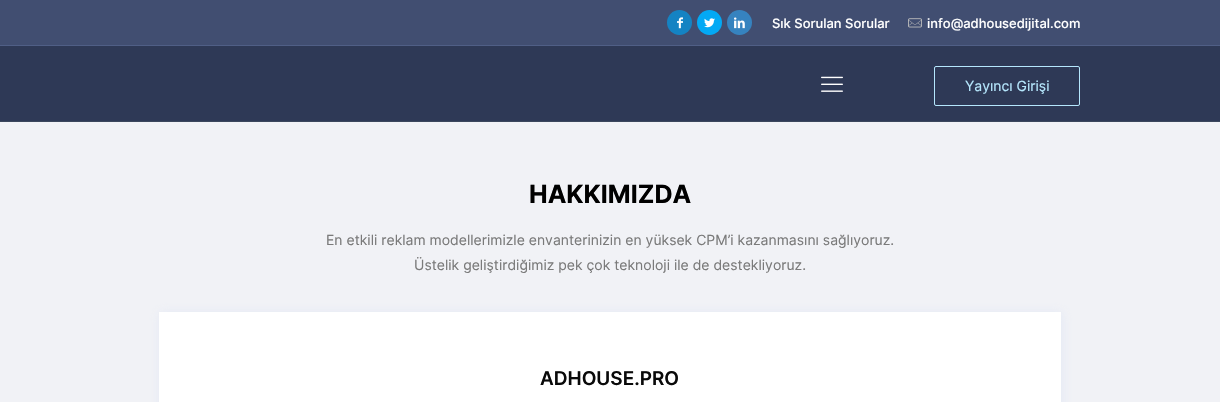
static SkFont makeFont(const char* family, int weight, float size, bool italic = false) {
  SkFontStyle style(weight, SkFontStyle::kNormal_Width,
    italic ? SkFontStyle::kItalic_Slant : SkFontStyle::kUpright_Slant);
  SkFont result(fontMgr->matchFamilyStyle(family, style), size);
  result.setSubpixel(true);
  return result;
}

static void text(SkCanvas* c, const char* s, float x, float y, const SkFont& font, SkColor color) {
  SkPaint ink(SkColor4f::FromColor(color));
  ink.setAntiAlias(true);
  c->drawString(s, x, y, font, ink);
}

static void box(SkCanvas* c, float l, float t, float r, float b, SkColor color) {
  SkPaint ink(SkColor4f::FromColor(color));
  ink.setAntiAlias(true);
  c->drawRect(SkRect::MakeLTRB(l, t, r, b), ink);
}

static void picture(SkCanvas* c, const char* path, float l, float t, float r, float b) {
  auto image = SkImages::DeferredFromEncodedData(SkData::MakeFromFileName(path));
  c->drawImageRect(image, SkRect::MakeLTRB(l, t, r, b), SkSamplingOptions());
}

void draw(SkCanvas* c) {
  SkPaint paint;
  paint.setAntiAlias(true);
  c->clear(0xfff1f2f6);
  box(c, 0, 0, 1220, 45, 0xff414e71);
  box(c, 0, 45, 1220, 46, 0xff505f86);
  paint.setColor(0xff1483c3);
  c->drawCircle(679.5f, 22.5f, 12.5f, paint);
  picture(c, "img_01.png", 677, 17, 683, 29);
  paint.setColor(0xff03a9f4);
  c->drawCircle(709.5f, 22.5f, 12.5f, paint);
  picture(c, "img_02.png", 704, 18, 715, 28);
  paint.setColor(0xff3683bf);
  c->drawCircle(739.5f, 22.5f, 12.5f, paint);
  picture(c, "img_03.png", 734, 17, 745, 29);
  SkFont face1 = makeFont("Inter", 500, 13);
  text(c, "Sık Sorulan Sorular", 772, 28, face1, 0xffffffff);
  picture(c, "img_04.png", 908, 18, 922, 28);
  text(c, "info@adhousedijital.com", 927, 28, face1, 0xffffffff);
  box(c, 0, 46, 1220, 121, 0xff2e3956);
  box(c, 0, 121, 1220, 122, 0xff3c475d);
  picture(c, "img_05.png", 821, 76, 843, 92);
  paint.setStyle(SkPaint::kStroke_Style);
  paint.setStrokeWidth(1);
  paint.setColor(0xffb5e7fd);
  c->drawRoundRect(SkRect::MakeLTRB(934.5f, 66.5f, 1079.5f, 105.5f), 1.5f, 1.5f, paint);
  SkFont face2 = makeFont("Inter", 400, 14);
  text(c, "Yayıncı Girişi", 965, 91, face2, 0xffb5e7fd);
  SkFont face3 = makeFont("Inter", 700, 25);
  text(c, "HAKKIMIZDA", 529, 203, face3, 0xff000000);
  text(c, "En etkili reklam modellerimizle envanterinizin en yüksek CPM’i kazanmasını sağlıyoruz.", 326, 245, face2, 0xff7a7a7a);
  text(c, "Üstelik geliştirdiğimiz pek çok teknoloji ile de destekliyoruz.", 414, 270, face2, 0xff7a7a7a);
  paint.setStyle(SkPaint::kFill_Style);
  paint.setColor(0x7dd9e0f3);
  paint.setMaskFilter(SkMaskFilter::MakeBlur(kNormal_SkBlurStyle, 5));
  c->drawRect(SkRect::MakeLTRB(159, 312, 1063, 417), paint);
  paint.setMaskFilter(nullptr);
  box(c, 159, 312, 1061, 402, 0xffffffff);
  SkFont face4 = makeFont("Inter", 600, 19);
  text(c, "ADHOUSE.PRO", 540, 385, face4, 0xff0a0a0a);
}
